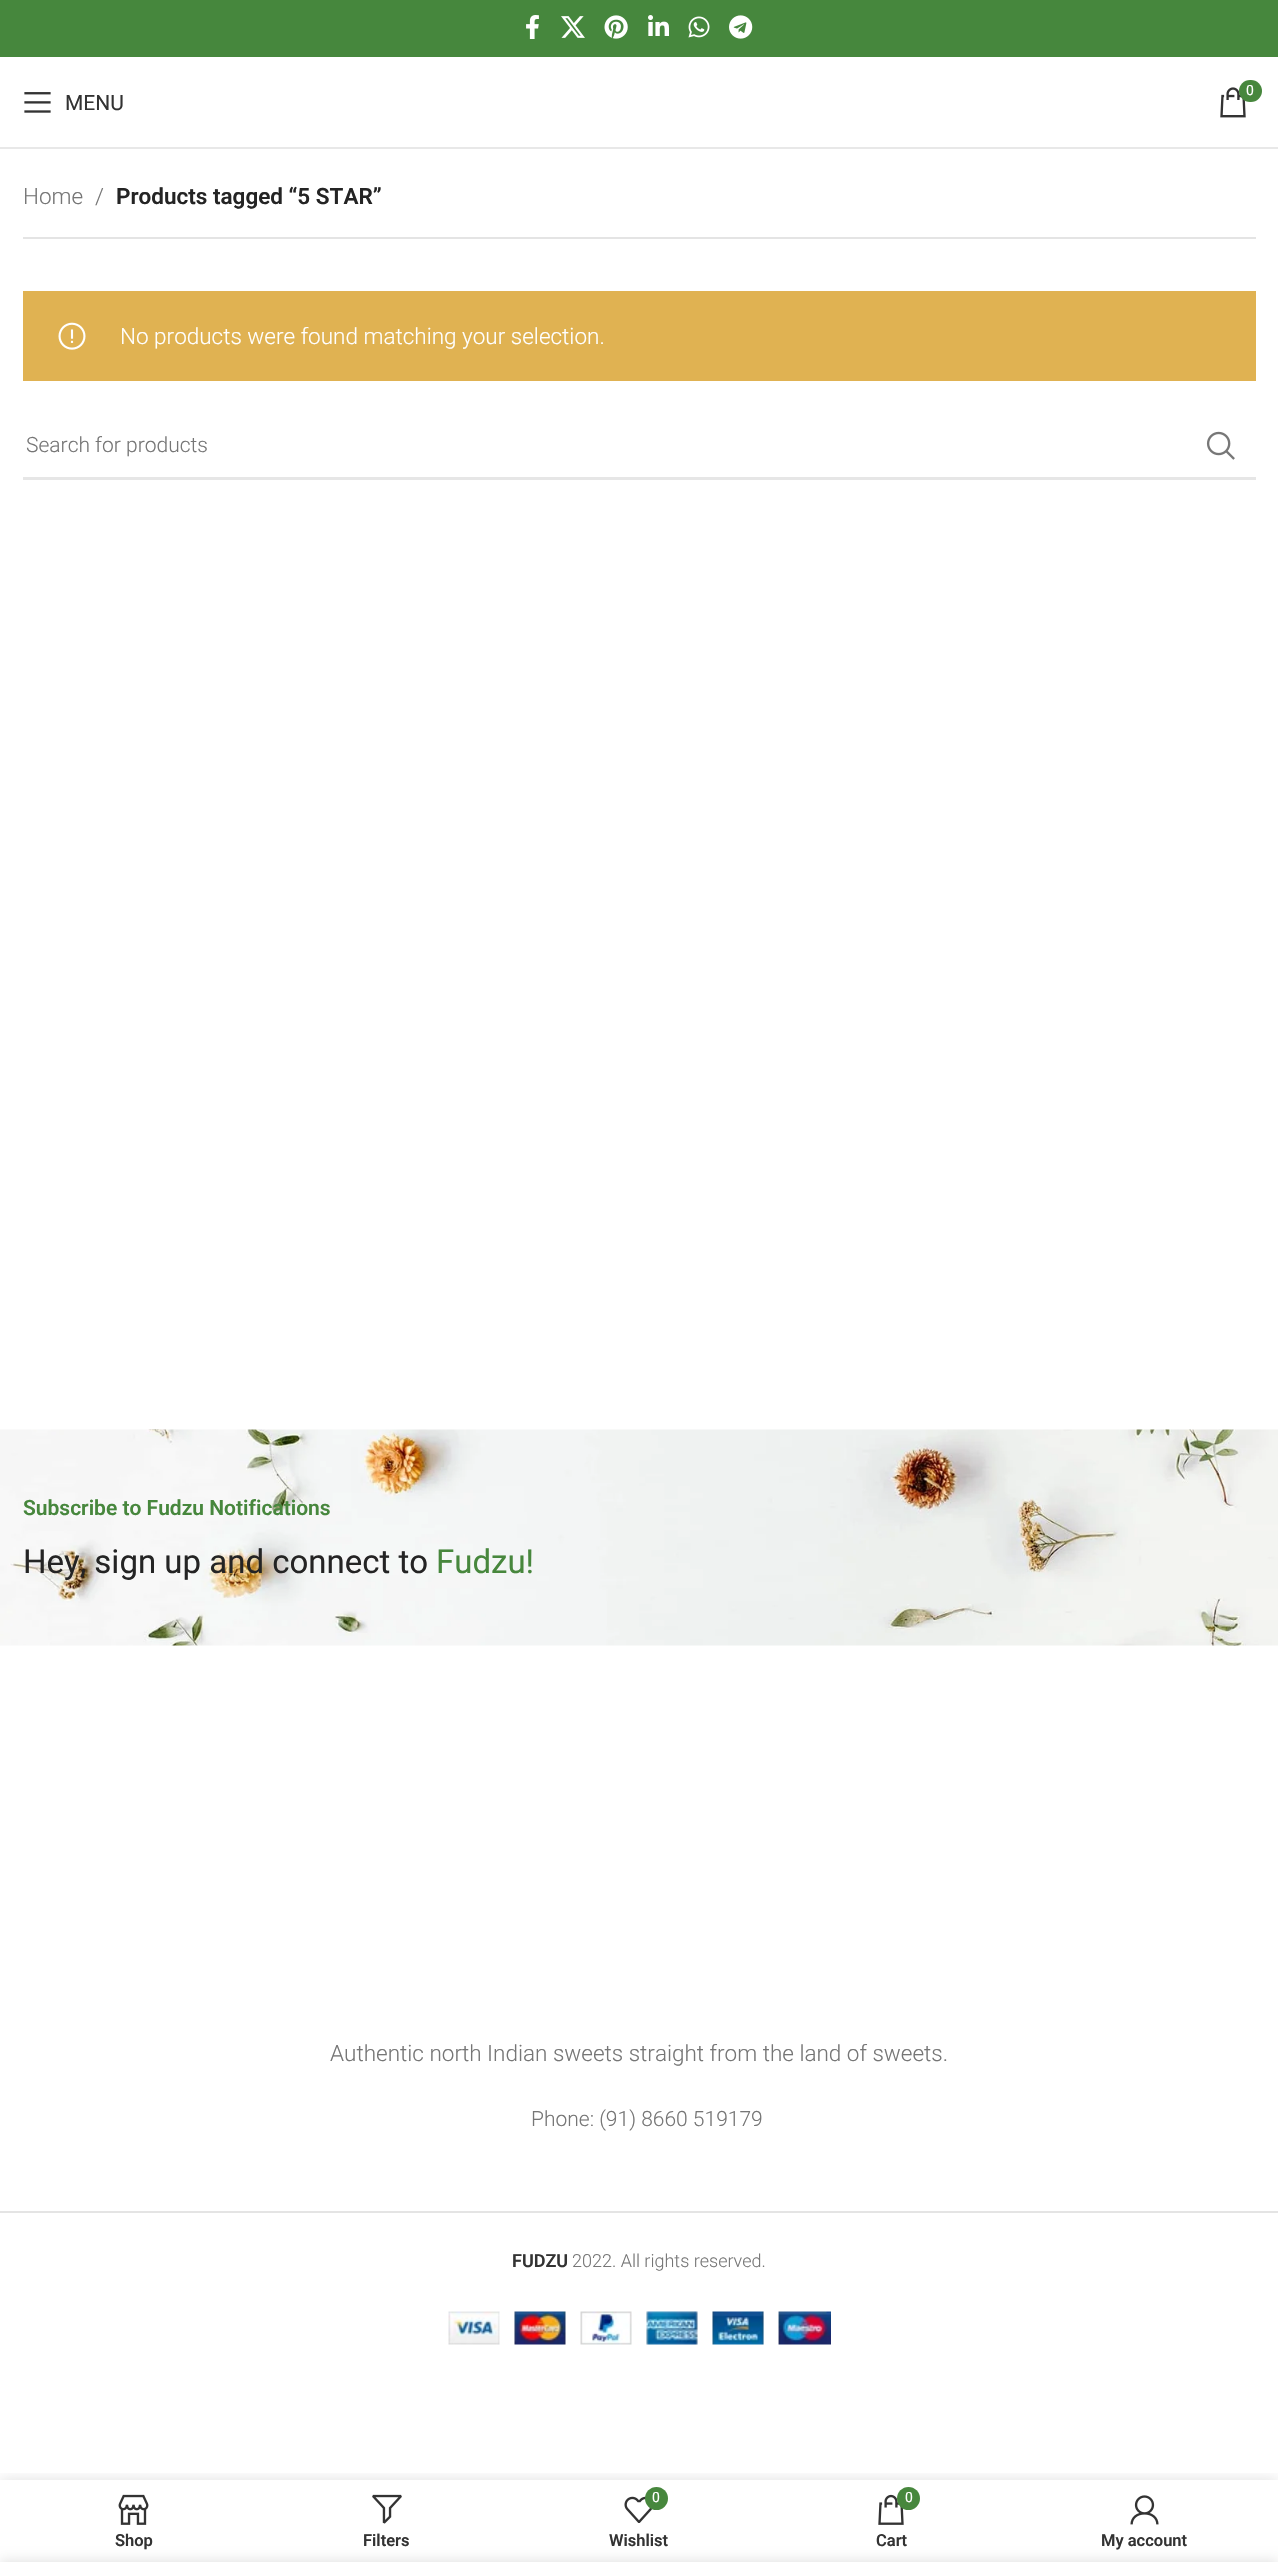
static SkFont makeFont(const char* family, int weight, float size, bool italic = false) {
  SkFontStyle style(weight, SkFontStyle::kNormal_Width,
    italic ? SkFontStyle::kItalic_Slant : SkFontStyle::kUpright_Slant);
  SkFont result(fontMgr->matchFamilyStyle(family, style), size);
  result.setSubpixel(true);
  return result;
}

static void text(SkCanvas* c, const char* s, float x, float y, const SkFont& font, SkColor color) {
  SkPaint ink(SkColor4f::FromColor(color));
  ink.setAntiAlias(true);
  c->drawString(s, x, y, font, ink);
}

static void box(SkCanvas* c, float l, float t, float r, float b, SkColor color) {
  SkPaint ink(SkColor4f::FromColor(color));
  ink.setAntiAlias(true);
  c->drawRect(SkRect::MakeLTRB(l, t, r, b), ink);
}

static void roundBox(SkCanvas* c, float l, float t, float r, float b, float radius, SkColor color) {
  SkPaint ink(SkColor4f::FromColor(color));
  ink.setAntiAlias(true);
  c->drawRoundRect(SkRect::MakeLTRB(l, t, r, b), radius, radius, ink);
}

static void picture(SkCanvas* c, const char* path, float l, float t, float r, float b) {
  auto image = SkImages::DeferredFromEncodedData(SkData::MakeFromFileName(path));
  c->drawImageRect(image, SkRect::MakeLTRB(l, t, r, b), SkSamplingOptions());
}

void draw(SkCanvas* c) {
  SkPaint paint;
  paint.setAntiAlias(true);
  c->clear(0xffffffff);
  box(c, 0, 0, 1278, 57, 0xff46873d);
  picture(c, "img_01.png", 526, 15, 539, 39);
  picture(c, "img_02.png", 561, 16, 585, 38);
  picture(c, "img_03.png", 604, 15, 628, 39);
  picture(c, "img_04.png", 648, 15, 669, 36);
  picture(c, "img_05.png", 688, 16, 710, 38);
  picture(c, "img_06.png", 729, 15, 753, 39);
  box(c, 0, 147, 1278, 149, 0xffe8e8e8);
  picture(c, "img_07.png", 1220, 87, 1246, 118);
  roundBox(c, 1239, 80, 1262, 102, 11, 0xff47873d);
  SkFont face1 = makeFont("Roboto", 400, 14);
  text(c, "0", 1246, 95, face1, 0xffffffff);
  picture(c, "img_08.png", 24, 92, 51, 113);
  SkFont face2 = makeFont("Roboto", 400, 21);
  text(c, "MENU", 65, 110, face2, 0xff333333);
  box(c, 23, 237, 1256, 239, 0xffe4e4e4);
  SkFont face3 = makeFont("Roboto", 300, 22.5f);
  text(c, "Home", 23, 204, face3, 0xff767676);
  text(c, "/", 95, 204, face3, 0xff767676);
  SkFont face4 = makeFont("Roboto", 600, 22.5f);
  text(c, "Products tagged “5 STAR”", 116, 204, face4, 0xff242424);
  box(c, 23, 291, 1256, 381, 0xffe0b252);
  picture(c, "img_09.png", 58, 322, 86, 350);
  text(c, "No products were found matching your selection.", 120, 344, face3, 0xffffffff);
  box(c, 23, 477, 1256, 480, 0xffe6e6e6);
  SkFont face5 = makeFont("Roboto", 300, 21);
  text(c, "Search for products", 26, 452, face5, 0xff767676);
  picture(c, "img_10.png", 1206, 431, 1235, 460);
  picture(c, "img_11.png", 0, 1429, 1278, 1646);
  SkFont face6 = makeFont("Roboto", 600, 21);
  text(c, "Subscribe to Fudzu Notifications", 23, 1515, face6, 0xff47873d);
  SkFont face7 = makeFont("Roboto", 400, 33);
  text(c, "Hey, sign up and connect to", 23, 1573, face7, 0xff242424);
  text(c, "Fudzu!", 436, 1573, face7, 0xff47873d);
  text(c, "Authentic north Indian sweets straight from the land of sweets.", 330, 2061, face3, 0xff767676);
  text(c, "Phone: (91) 8660 519179", 531, 2126, face5, 0xff767676);
  box(c, 0, 2211, 1278, 2213, 0xffe4e4e4);
  SkFont face8 = makeFont("Roboto", 600, 18);
  text(c, "FUDZU", 512, 2267, face8, 0xff333333);
  SkFont face9 = makeFont("Roboto", 300, 18);
  text(c, "2022. All rights reserved.", 572, 2267, face9, 0xff767676);
  picture(c, "img_12.png", 448, 2311, 831, 2345);
  c->save();
  c->clipRect(SkRect::MakeLTRB(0, 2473, 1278, 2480));
  paint.setColor(0x1f000000);
  paint.setMaskFilter(SkMaskFilter::MakeBlur(kNormal_SkBlurStyle, 7));
  c->drawRect(SkRect::MakeLTRB(0, 2480, 1278, 2562), paint);
  paint.setMaskFilter(nullptr);
  c->restore();
  picture(c, "img_13.png", 118, 2494, 149, 2525);
  SkFont face10 = makeFont("Roboto", 600, 16.5f);
  text(c, "Shop", 115, 2546, face10, 0xff333333);
  picture(c, "img_14.png", 372, 2494, 402, 2524);
  text(c, "Filters", 363, 2546, face10, 0xff333333);
  picture(c, "img_15.png", 624, 2496, 653, 2523);
  paint.setColor(0xff47873d);
  c->drawCircle(656.5f, 2498.5f, 11.5f, paint);
  text(c, "0", 652, 2502, face1, 0xffffffff);
  text(c, "Wishlist", 609, 2546, face10, 0xff333333);
  picture(c, "img_16.png", 878, 2494, 904, 2525);
  c->drawCircle(908.5f, 2498.5f, 11.5f, paint);
  text(c, "0", 905, 2502, face1, 0xffffffff);
  text(c, "Cart", 876, 2546, face10, 0xff333333);
  picture(c, "img_17.png", 1130, 2495, 1159, 2525);
  text(c, "My account", 1101, 2546, face10, 0xff333333);
  paint.setColor(0x24000000);
  paint.setMaskFilter(SkMaskFilter::MakeBlur(kNormal_SkBlurStyle, 7));
  c->drawRect(SkRect::MakeLTRB(0, 2562, 1278, 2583), paint);
  paint.setMaskFilter(nullptr);
}
